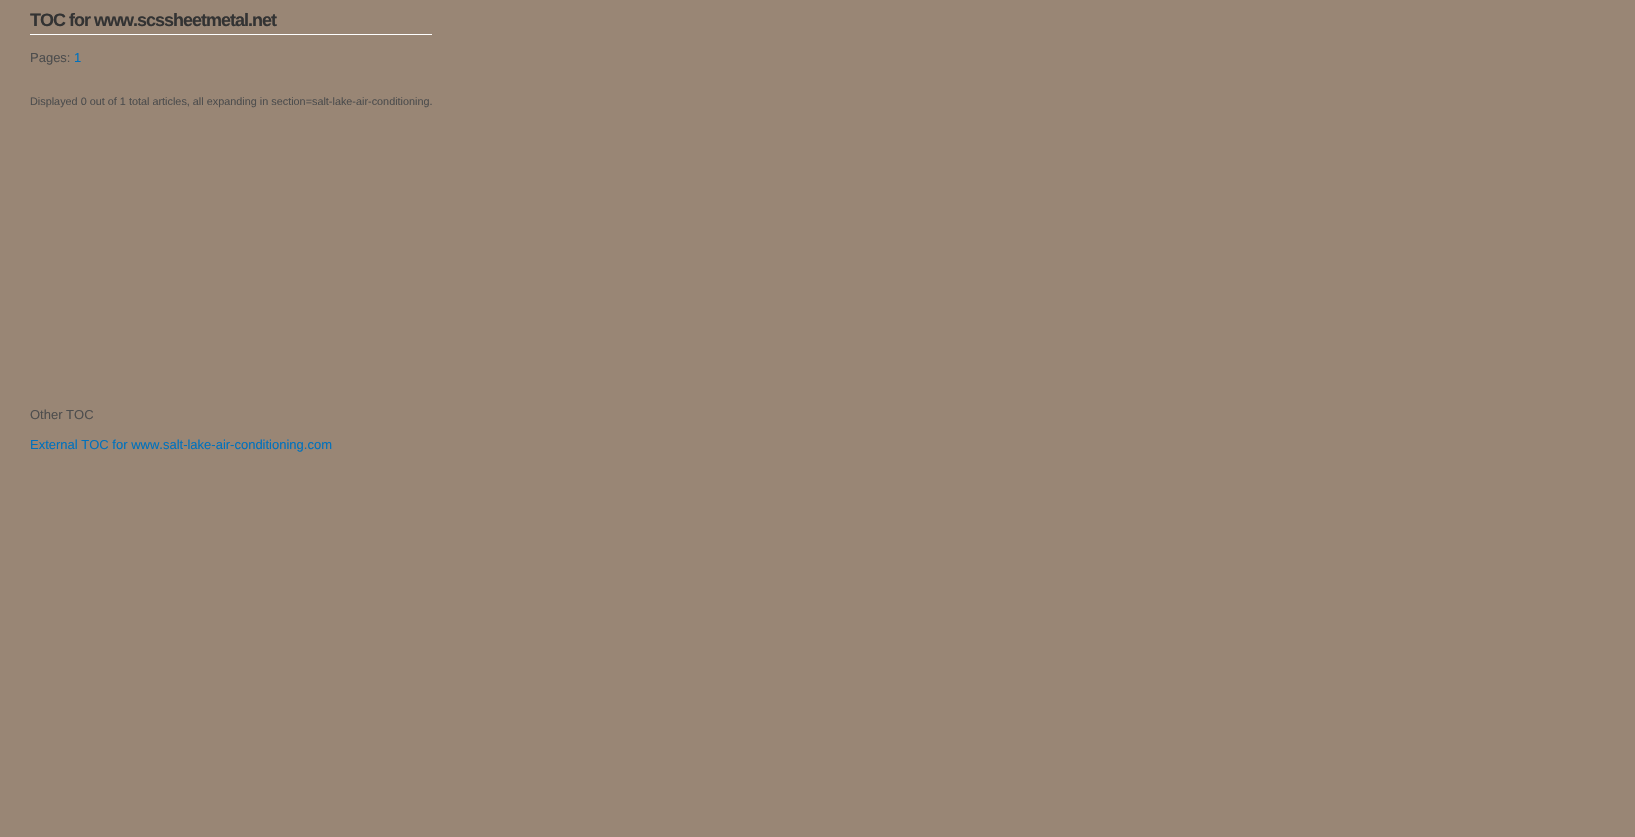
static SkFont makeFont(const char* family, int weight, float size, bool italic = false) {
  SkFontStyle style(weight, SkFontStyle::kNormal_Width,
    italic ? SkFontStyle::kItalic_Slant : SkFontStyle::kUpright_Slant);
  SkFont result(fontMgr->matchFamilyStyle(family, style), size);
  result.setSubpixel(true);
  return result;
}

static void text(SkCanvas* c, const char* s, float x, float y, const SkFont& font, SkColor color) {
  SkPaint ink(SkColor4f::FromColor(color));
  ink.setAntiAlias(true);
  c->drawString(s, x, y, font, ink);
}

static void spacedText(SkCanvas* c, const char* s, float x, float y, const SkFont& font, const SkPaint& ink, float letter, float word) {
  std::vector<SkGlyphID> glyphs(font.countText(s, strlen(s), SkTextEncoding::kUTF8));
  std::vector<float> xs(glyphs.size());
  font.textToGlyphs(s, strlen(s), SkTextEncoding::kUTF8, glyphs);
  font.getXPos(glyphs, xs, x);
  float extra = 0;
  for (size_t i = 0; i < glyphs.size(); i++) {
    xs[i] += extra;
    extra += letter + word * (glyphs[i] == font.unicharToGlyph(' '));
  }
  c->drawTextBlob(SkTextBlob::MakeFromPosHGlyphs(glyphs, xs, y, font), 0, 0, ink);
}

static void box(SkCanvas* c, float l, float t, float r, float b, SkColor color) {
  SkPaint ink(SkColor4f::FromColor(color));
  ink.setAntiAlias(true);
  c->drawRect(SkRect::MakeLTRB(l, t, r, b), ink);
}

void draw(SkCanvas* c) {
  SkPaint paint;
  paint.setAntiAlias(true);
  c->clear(0xff998675);
  box(c, 30, 34, 432, 35, 0xffffffff);
  SkFont face1 = makeFont("Liberation Sans", 700, 18);
  paint.setColor(0xff333333);
  spacedText(c, "TOC for www.scssheetmetal.net", 30, 26, face1, paint, -1, 0);
  SkFont face2 = makeFont("Liberation Sans", 400, 13);
  text(c, "Pages:", 30, 62, face2, 0xff4d4d4d);
  text(c, "1", 74, 62, face2, 0xff0071bd);
  SkFont face3 = makeFont("Liberation Sans", 400, 10.85f);
  text(c, "Displayed 0 out of 1 total articles, all expanding in section=salt-lake-air-conditioning.", 30, 105, face3, 0xff4d4d4d);
  text(c, "Other TOC", 30, 419, face2, 0xff4d4d4d);
  text(c, "External TOC for www.salt-lake-air-conditioning.com", 30, 449, face2, 0xff0071bd);
}
